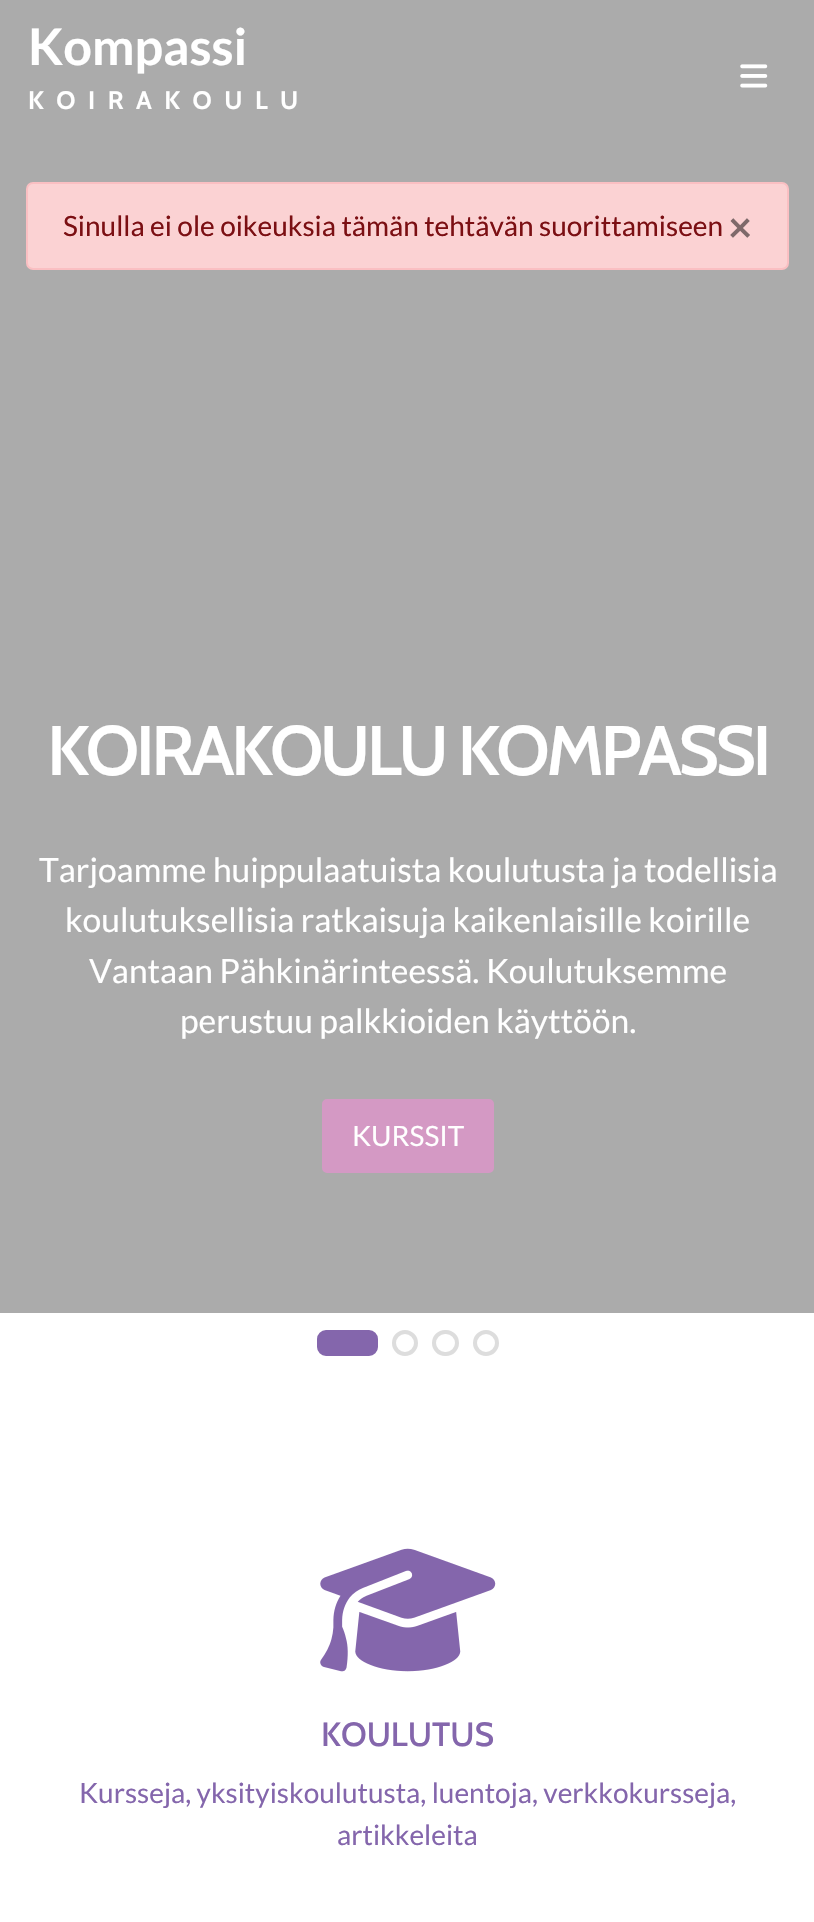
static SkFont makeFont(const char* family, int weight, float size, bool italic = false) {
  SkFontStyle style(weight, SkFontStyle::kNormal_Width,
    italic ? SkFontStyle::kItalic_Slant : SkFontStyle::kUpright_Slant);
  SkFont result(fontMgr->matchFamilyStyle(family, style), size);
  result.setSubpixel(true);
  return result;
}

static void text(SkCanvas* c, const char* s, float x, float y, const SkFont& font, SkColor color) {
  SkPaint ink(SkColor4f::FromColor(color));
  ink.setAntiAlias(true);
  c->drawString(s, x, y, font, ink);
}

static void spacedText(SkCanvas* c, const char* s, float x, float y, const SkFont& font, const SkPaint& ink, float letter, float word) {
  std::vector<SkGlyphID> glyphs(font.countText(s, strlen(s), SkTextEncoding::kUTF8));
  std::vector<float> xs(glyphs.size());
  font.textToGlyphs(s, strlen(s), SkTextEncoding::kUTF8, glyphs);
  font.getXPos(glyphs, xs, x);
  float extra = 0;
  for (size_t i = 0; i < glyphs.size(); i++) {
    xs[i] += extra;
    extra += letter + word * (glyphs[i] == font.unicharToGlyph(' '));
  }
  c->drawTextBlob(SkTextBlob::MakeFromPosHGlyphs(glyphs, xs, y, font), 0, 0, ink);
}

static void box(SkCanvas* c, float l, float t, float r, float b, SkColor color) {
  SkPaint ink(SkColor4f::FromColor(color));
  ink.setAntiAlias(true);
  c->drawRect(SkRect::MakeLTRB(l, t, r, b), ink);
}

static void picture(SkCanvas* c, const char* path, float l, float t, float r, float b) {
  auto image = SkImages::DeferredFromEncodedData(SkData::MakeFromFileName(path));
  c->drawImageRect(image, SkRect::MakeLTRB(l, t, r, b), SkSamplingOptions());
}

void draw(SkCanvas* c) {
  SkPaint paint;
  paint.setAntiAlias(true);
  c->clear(0xffffffff);
  box(c, 0, 0, 814, 1313, 0xffababab);
  SkFont face1 = makeFont("Lato", 700, 50.5f);
  text(c, "Kompassi", 28, 65, face1, 0xffffffff);
  SkFont face2 = makeFont("Cabin", 700, 25.25f);
  paint.setColor(0xffffffff);
  spacedText(c, "KOIRAKOULU", 28, 109, face2, paint, 12.5f, 0);
  picture(c, "img_01.png", 740, 64, 768, 88);
  paint.setColor(0xfffbd2d3);
  c->drawRoundRect(SkRect::MakeLTRB(27, 183, 788, 269), 6, 6, paint);
  paint.setStyle(SkPaint::kStroke_Style);
  paint.setStrokeWidth(2);
  paint.setColor(0xfffabfc2);
  c->drawRoundRect(SkRect::MakeLTRB(27, 183, 788, 269), 6, 6, paint);
  SkFont face3 = makeFont("Lato", 400, 28);
  text(c, "Sinulla ei ole oikeuksia tämän tehtävän suorittamiseen", 63, 236, face3, 0xff7b0f13);
  SkFont face4 = makeFont("Lato", 700, 42);
  text(c, "×", 728, 242, face4, 0xff7e696a);
  SkFont face5 = makeFont("Cabin", 600, 70);
  paint.setStyle(SkPaint::kFill_Style);
  paint.setColor(0xffffffff);
  spacedText(c, "KOIRAKOULU KOMPASSI", 47, 775, face5, paint, -3.5f, 0);
  SkFont face6 = makeFont("Lato", 400, 33.6f);
  text(c, "Tarjoamme huippulaatuista koulutusta ja todellisia", 39, 882, face6, 0xffffffff);
  text(c, "koulutuksellisia ratkaisuja kaikenlaisille koirille", 65, 932, face6, 0xffffffff);
  text(c, "Vantaan Pähkinärinteessä. Koulutuksemme", 89, 983, face6, 0xffffffff);
  text(c, "perustuu palkkioiden käyttöön.", 180, 1033, face6, 0xffffffff);
  paint.setColor(0xffd499c4);
  c->drawRoundRect(SkRect::MakeLTRB(323, 1100, 493, 1172), 4, 4, paint);
  paint.setStyle(SkPaint::kStroke_Style);
  c->drawRoundRect(SkRect::MakeLTRB(323, 1100, 493, 1172), 4, 4, paint);
  text(c, "KURSSIT", 352, 1146, face3, 0xffffffff);
  paint.setStyle(SkPaint::kFill_Style);
  paint.setColor(0xff8466ac);
  c->drawRoundRect(SkRect::MakeLTRB(319, 1332, 376, 1354), 7, 7, paint);
  paint.setStyle(SkPaint::kStroke_Style);
  paint.setStrokeWidth(4);
  c->drawRoundRect(SkRect::MakeLTRB(319, 1332, 376, 1354), 7, 7, paint);
  paint.setColor(0xffdddddd);
  c->drawCircle(405, 1343, 11, paint);
  c->drawRoundRect(SkRect::MakeLTRB(434, 1332, 457, 1354), 11, 11, paint);
  c->drawCircle(486, 1343, 11, paint);
  picture(c, "img_02.png", 320, 1548, 496, 1672);
  SkFont face7 = makeFont("Cabin", 500, 33.6f);
  text(c, "KOULUTUS", 321, 1746, face7, 0xff8466ac);
  text(c, "Kursseja, yksityiskoulutusta, luentoja, verkkokursseja,", 79, 1803, face3, 0xff8466ac);
  text(c, "artikkeleita", 337, 1845, face3, 0xff8466ac);
}
